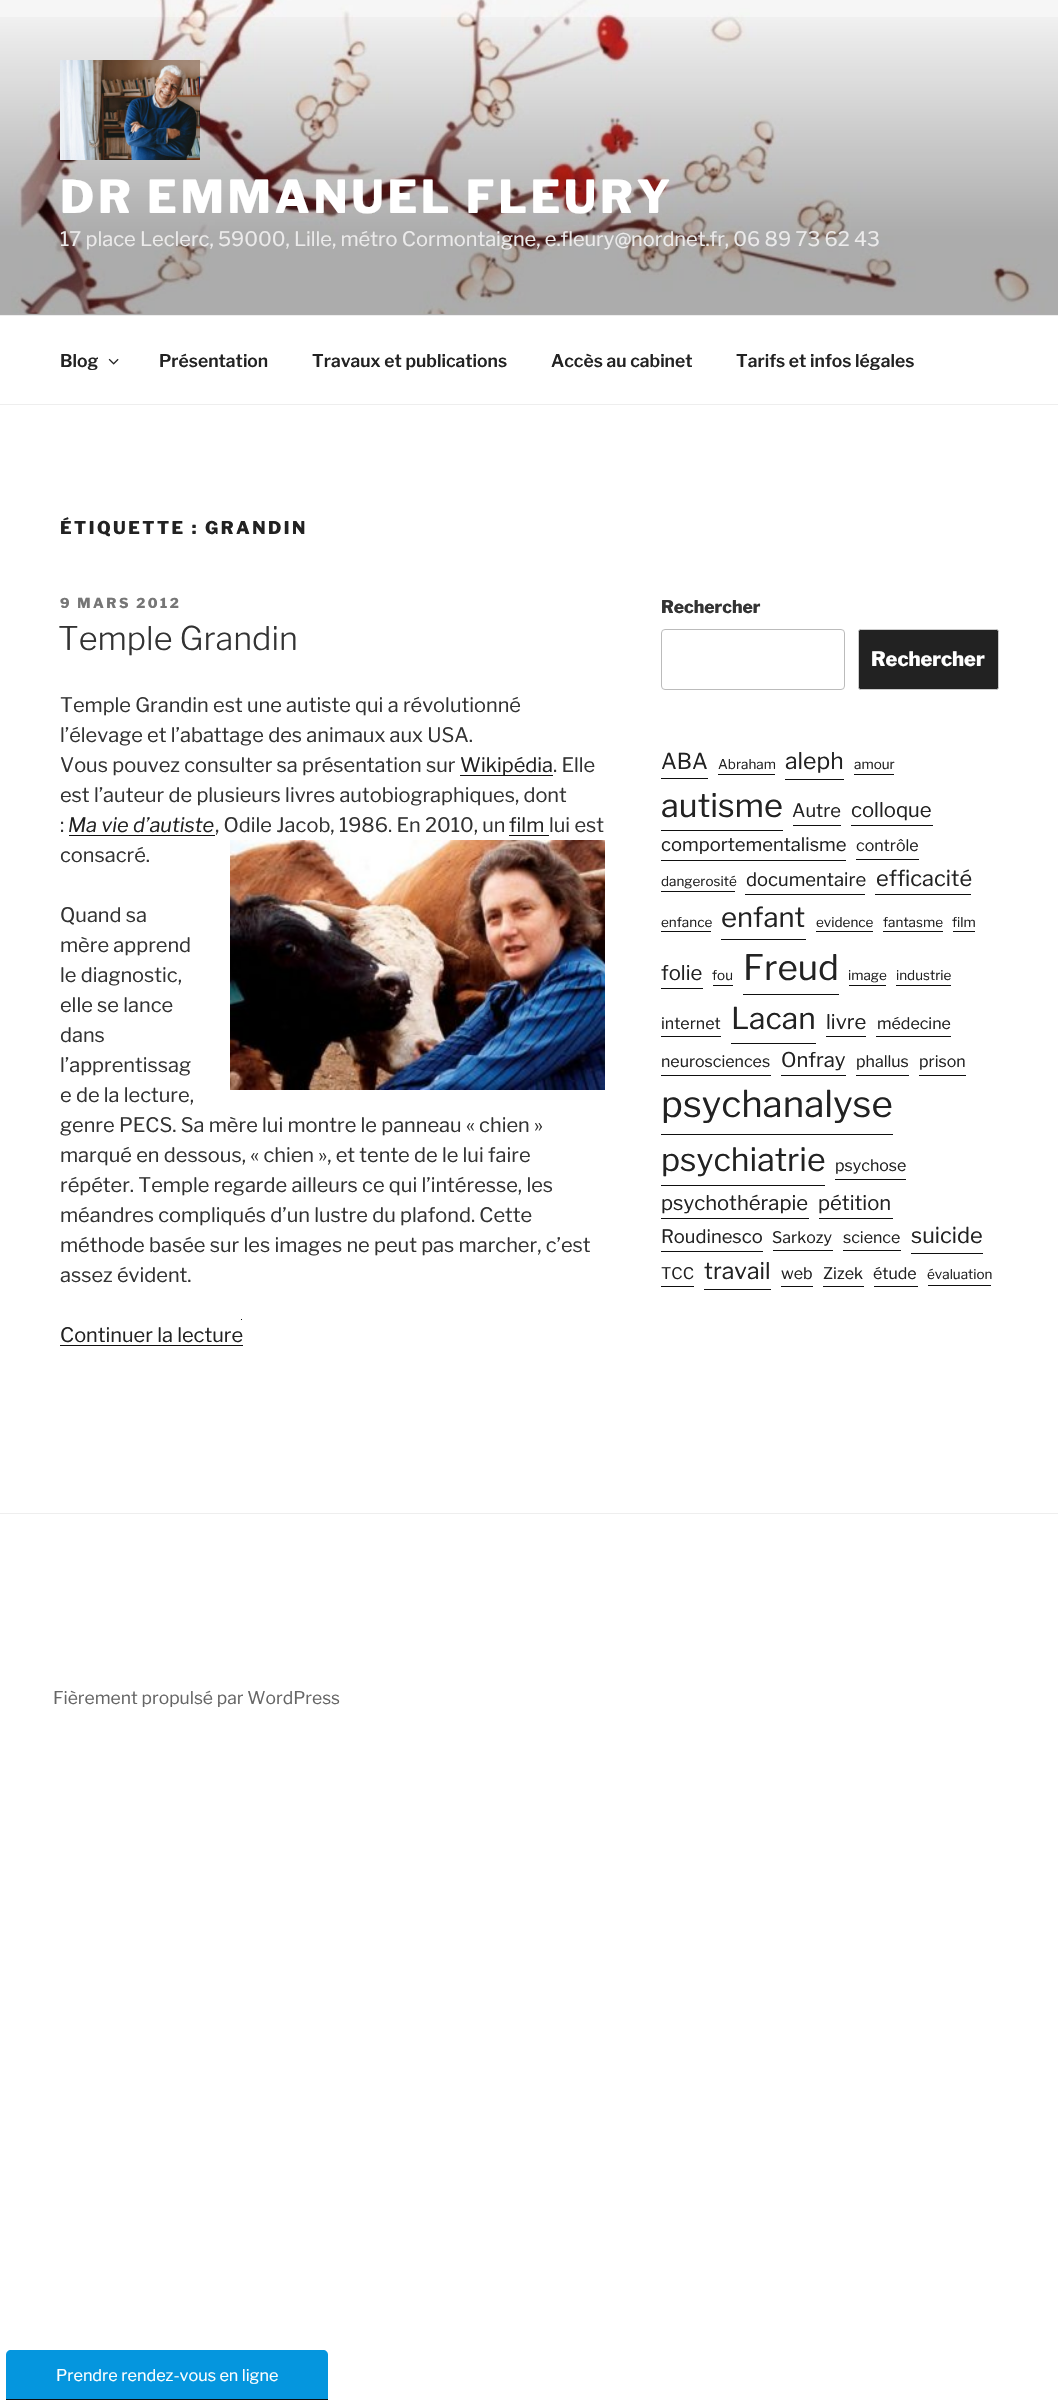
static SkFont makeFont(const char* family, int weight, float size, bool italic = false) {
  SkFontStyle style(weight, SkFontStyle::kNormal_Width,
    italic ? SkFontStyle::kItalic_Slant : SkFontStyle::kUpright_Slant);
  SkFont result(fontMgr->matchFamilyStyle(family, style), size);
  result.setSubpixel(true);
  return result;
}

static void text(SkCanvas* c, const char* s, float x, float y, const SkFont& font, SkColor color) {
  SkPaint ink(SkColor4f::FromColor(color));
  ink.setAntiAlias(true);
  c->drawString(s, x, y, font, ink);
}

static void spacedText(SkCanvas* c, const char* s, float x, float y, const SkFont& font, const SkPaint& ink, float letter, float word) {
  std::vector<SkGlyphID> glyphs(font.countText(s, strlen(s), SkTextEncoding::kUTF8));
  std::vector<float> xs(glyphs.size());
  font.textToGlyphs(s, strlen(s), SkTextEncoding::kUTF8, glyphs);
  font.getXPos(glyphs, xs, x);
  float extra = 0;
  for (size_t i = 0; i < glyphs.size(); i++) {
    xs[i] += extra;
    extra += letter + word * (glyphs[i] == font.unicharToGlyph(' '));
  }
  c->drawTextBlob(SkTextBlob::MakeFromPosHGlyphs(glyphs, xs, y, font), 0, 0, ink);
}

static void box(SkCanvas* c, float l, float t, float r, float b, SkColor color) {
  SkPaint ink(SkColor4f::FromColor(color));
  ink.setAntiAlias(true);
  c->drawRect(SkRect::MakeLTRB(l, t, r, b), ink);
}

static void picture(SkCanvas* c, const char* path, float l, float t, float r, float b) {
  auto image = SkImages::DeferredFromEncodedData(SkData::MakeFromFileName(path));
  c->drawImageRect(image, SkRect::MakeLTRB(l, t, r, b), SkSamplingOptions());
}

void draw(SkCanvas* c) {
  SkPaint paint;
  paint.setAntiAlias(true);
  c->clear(0xffffffff);
  box(c, 0, 313, 1058, 315, 0xfffafafa);
  picture(c, "img_01.png", 0, 0, 1058, 314);
  {
    const SkColor colors[] = {0x00000000, 0x4d000000, 0x4d000000};
    const float stops[] = {0, 0.75f, 1};
    const SkPoint ends[] = {{529, 0}, {529, 315}};
    paint.setShader(SkGradientShader::MakeLinear(ends, colors, stops, 3, SkTileMode::kClamp));
    paint.setAlpha(255);
  }
  c->drawRect(SkRect::MakeLTRB(0, 17, 1058, 315), paint);
  picture(c, "img_02.png", 60, 60, 200, 160);
  SkFont face1 = makeFont("Libre Franklin", 100, 45);
  paint.setShader(nullptr);
  paint.setColor(0xffffffff);
  spacedText(c, "DR EMMANUEL FLEURY", 60, 213, face1, paint, 3.6f, 0);
  SkFont face2 = makeFont("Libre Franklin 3", 100, 20);
  text(c, "17 place Leclerc, 59000, Lille, métro Cormontaigne, e.fleury@nordnet.fr, 06 89 73 62 43", 60, 246, face2, 0xffecebeb);
  box(c, 0, 315, 1058, 316, 0xffeeeeee);
  box(c, 0, 404, 1058, 405, 0xffeeeeee);
  SkFont face3 = makeFont("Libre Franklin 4", 100, 17.5f);
  text(c, "Blog", 60, 367, face3, 0xff222222);
  picture(c, "img_03.png", 108, 358, 119, 365);
  text(c, "Présentation", 159, 367, face3, 0xff222222);
  text(c, "Travaux et publications", 312, 367, face3, 0xff222222);
  text(c, "Accès au cabinet", 551, 367, face3, 0xff222222);
  text(c, "Tarifs et infos légales", 736, 367, face3, 0xff222222);
  SkFont face4 = makeFont("Libre Franklin", 100, 17.5f);
  paint.setColor(0xff222222);
  spacedText(c, "ÉTIQUETTE : GRANDIN", 60, 534, face4, paint, 2.5f, 0);
  SkFont face5 = makeFont("Libre Franklin", 100, 13.75f);
  paint.setColor(0xff767676);
  spacedText(c, "9 MARS 2012", 60, 608, face5, paint, 2.5f, 0);
  SkFont face6 = makeFont("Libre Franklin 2", 100, 32.5f);
  text(c, "Temple Grandin", 58, 650, face6, 0xff333333);
  text(c, "Temple Grandin est une autiste qui a révolutionné", 60, 712, face2, 0xff333333);
  text(c, "l’élevage et l’abattage des animaux aux USA.", 60, 742, face2, 0xff333333);
  text(c, "Vous pouvez consulter sa présentation sur", 60, 772, face2, 0xff333333);
  box(c, 460, 775, 553, 776, 0xff0f0f0f);
  text(c, "Wikipédia", 460, 772, face2, 0xff222222);
  text(c, ". Elle", 553, 772, face2, 0xff333333);
  text(c, "est l’auteur de plusieurs livres autobiographiques, dont", 60, 802, face2, 0xff333333);
  text(c, ":", 60, 832, face2, 0xff333333);
  SkFont face7 = makeFont("Libre Franklin", 100, 20, true);
  text(c, "Ma vie d’autiste", 68, 832, face7, 0xff222222);
  box(c, 69, 835, 215, 836, 0xff0f0f0f);
  text(c, ", Odile Jacob, 1986. En 2010, un", 215, 832, face2, 0xff333333);
  text(c, "film", 509, 832, face2, 0xff222222);
  box(c, 509, 835, 549, 836, 0xff0f0f0f);
  text(c, "lui est", 549, 832, face2, 0xff333333);
  text(c, "consacré.", 60, 862, face2, 0xff333333);
  picture(c, "img_04.png", 230, 840, 605, 1090);
  text(c, "Quand sa", 60, 922, face2, 0xff333333);
  text(c, "mère apprend", 60, 952, face2, 0xff333333);
  text(c, "le diagnostic,", 60, 982, face2, 0xff333333);
  text(c, "elle se lance", 60, 1012, face2, 0xff333333);
  text(c, "dans", 60, 1042, face2, 0xff333333);
  text(c, "l’apprentissag", 60, 1072, face2, 0xff333333);
  text(c, "e de la lecture,", 60, 1102, face2, 0xff333333);
  text(c, "genre PECS. Sa mère lui montre le panneau « chien »", 60, 1132, face2, 0xff333333);
  text(c, "marqué en dessous, « chien », et tente de le lui faire", 60, 1162, face2, 0xff333333);
  text(c, "répéter. Temple regarde ailleurs ce qui l’intéresse, les", 60, 1192, face2, 0xff333333);
  text(c, "méandres compliqués d’un lustre du plafond. Cette", 60, 1222, face2, 0xff333333);
  text(c, "méthode basée sur les images ne peut pas marcher, c’est", 60, 1252, face2, 0xff333333);
  text(c, "assez évident.", 60, 1282, face2, 0xff333333);
  text(c, "Continuer la lecture", 60, 1342, face2, 0xff222222);
  box(c, 60, 1345, 243, 1346, 0xff0f0f0f);
  box(c, 241, 1319, 242, 1320, 0xff0f0f0f);
  text(c, "Rechercher", 661, 613, face4, 0xff333333);
  paint.setStyle(SkPaint::kStroke_Style);
  paint.setStrokeWidth(1);
  paint.setColor(0xffbbbbbb);
  c->drawRoundRect(SkRect::MakeLTRB(661.5f, 629.5f, 844.5f, 689.5f), 3.5f, 3.5f, paint);
  paint.setStyle(SkPaint::kFill_Style);
  paint.setColor(0xff222222);
  c->drawRoundRect(SkRect::MakeLTRB(858.5f, 629.5f, 998.5f, 689.5f), 2, 2, paint);
  paint.setStyle(SkPaint::kStroke_Style);
  paint.setColor(0xffcccccc);
  c->drawRoundRect(SkRect::MakeLTRB(858.5f, 629.5f, 998.5f, 689.5f), 2, 2, paint);
  SkFont face8 = makeFont("Libre Franklin", 100, 20);
  text(c, "Rechercher", 871, 666, face8, 0xffffffff);
  box(c, 661, 778, 708, 779, 0xff0f0f0f);
  SkFont face9 = makeFont("Libre Franklin 3", 100, 21.75f);
  text(c, "ABA", 661, 769, face9, 0xff222222);
  box(c, 718, 774, 775, 775, 0xff0f0f0f);
  SkFont face10 = makeFont("Libre Franklin 3", 100, 13.5f);
  text(c, "Abraham", 718, 769, face10, 0xff222222);
  box(c, 785, 779, 844, 780, 0xff0f0f0f);
  SkFont face11 = makeFont("Libre Franklin 3", 100, 23);
  text(c, "aleph", 785, 769, face11, 0xff222222);
  box(c, 854, 774, 894, 775, 0xff0f0f0f);
  text(c, "amour", 854, 769, face10, 0xff222222);
  box(c, 661, 830, 783, 831, 0xff0f0f0f);
  SkFont face12 = makeFont("Libre Franklin 3", 100, 32.5f);
  text(c, "autisme", 661, 817, face12, 0xff222222);
  box(c, 793, 825, 841, 826, 0xff0f0f0f);
  SkFont face13 = makeFont("Libre Franklin 3", 100, 18.4f);
  text(c, "Autre", 792, 817, face13, 0xff222222);
  box(c, 851, 825, 933, 826, 0xff0f0f0f);
  SkFont face14 = makeFont("Libre Franklin 3", 100, 20.25f);
  text(c, "colloque", 851, 817, face14, 0xff222222);
  box(c, 661, 860, 846, 861, 0xff0f0f0f);
  text(c, "comportementalisme", 661, 851, face13, 0xff222222);
  box(c, 856, 859, 919, 860, 0xff0f0f0f);
  SkFont face15 = makeFont("Libre Franklin 3", 100, 16);
  text(c, "contrôle", 856, 851, face15, 0xff222222);
  box(c, 661, 891, 735, 892, 0xff0f0f0f);
  text(c, "dangerosité", 661, 886, face10, 0xff222222);
  box(c, 745, 894, 865, 895, 0xff0f0f0f);
  text(c, "documentaire", 746, 886, face13, 0xff222222);
  box(c, 875, 894, 971, 895, 0xff0f0f0f);
  text(c, "efficacité", 876, 886, face9, 0xff222222);
  box(c, 661, 931, 711, 932, 0xff0f0f0f);
  text(c, "enfance", 661, 927, face10, 0xff222222);
  box(c, 721, 939, 806, 940, 0xff0f0f0f);
  SkFont face16 = makeFont("Libre Franklin 3", 100, 27.5f);
  text(c, "enfant", 721, 927, face16, 0xff222222);
  box(c, 816, 931, 873, 932, 0xff0f0f0f);
  text(c, "evidence", 816, 927, face10, 0xff222222);
  box(c, 883, 931, 943, 932, 0xff0f0f0f);
  text(c, "fantasme", 883, 927, face10, 0xff222222);
  box(c, 953, 931, 975, 932, 0xff0f0f0f);
  text(c, "film", 952, 927, face10, 0xff222222);
  box(c, 661, 988, 703, 989, 0xff0f0f0f);
  text(c, "folie", 661, 980, face14, 0xff222222);
  box(c, 713, 985, 733, 986, 0xff0f0f0f);
  text(c, "fou", 712, 980, face10, 0xff222222);
  box(c, 743, 994, 839, 995, 0xff0f0f0f);
  SkFont face17 = makeFont("Libre Franklin 3", 100, 35);
  text(c, "Freud", 743, 980, face17, 0xff222222);
  box(c, 849, 985, 886, 986, 0xff0f0f0f);
  text(c, "image", 848, 980, face10, 0xff222222);
  box(c, 896, 985, 951, 986, 0xff0f0f0f);
  text(c, "industrie", 896, 980, face10, 0xff222222);
  box(c, 661, 1036, 721, 1037, 0xff0f0f0f);
  text(c, "internet", 661, 1029, face15, 0xff222222);
  box(c, 731, 1043, 816, 1044, 0xff0f0f0f);
  SkFont face18 = makeFont("Libre Franklin 3", 100, 30);
  text(c, "Lacan", 731, 1029, face18, 0xff222222);
  box(c, 826, 1036, 866, 1037, 0xff0f0f0f);
  text(c, "livre", 826, 1029, face14, 0xff222222);
  box(c, 876, 1036, 951, 1037, 0xff0f0f0f);
  text(c, "médecine", 877, 1029, face15, 0xff222222);
  box(c, 661, 1075, 771, 1076, 0xff0f0f0f);
  text(c, "neurosciences", 661, 1067, face15, 0xff222222);
  box(c, 781, 1075, 846, 1076, 0xff0f0f0f);
  text(c, "Onfray", 781, 1067, face14, 0xff222222);
  box(c, 856, 1075, 909, 1076, 0xff0f0f0f);
  text(c, "phallus", 856, 1067, face15, 0xff222222);
  box(c, 919, 1075, 966, 1076, 0xff0f0f0f);
  text(c, "prison", 919, 1067, face15, 0xff222222);
  box(c, 661, 1134, 893, 1135, 0xff0f0f0f);
  SkFont face19 = makeFont("Libre Franklin 3", 100, 36.75f);
  text(c, "psychanalyse", 661, 1117, face19, 0xff222222);
  box(c, 661, 1185, 825, 1186, 0xff0f0f0f);
  SkFont face20 = makeFont("Libre Franklin 3", 100, 32);
  text(c, "psychiatrie", 661, 1171, face20, 0xff222222);
  box(c, 835, 1179, 906, 1180, 0xff0f0f0f);
  text(c, "psychose", 835, 1171, face15, 0xff222222);
  box(c, 661, 1218, 809, 1219, 0xff0f0f0f);
  text(c, "psychothérapie", 661, 1210, face14, 0xff222222);
  box(c, 819, 1218, 893, 1219, 0xff0f0f0f);
  text(c, "pétition", 818, 1210, face14, 0xff222222);
  box(c, 661, 1251, 763, 1252, 0xff0f0f0f);
  text(c, "Roudinesco", 661, 1243, face13, 0xff222222);
  box(c, 773, 1250, 833, 1251, 0xff0f0f0f);
  text(c, "Sarkozy", 772, 1243, face15, 0xff222222);
  box(c, 843, 1250, 901, 1251, 0xff0f0f0f);
  text(c, "science", 843, 1243, face15, 0xff222222);
  box(c, 911, 1253, 983, 1254, 0xff0f0f0f);
  text(c, "suicide", 911, 1243, face9, 0xff222222);
  box(c, 661, 1286, 694, 1287, 0xff0f0f0f);
  text(c, "TCC", 661, 1279, face15, 0xff222222);
  box(c, 704, 1289, 771, 1290, 0xff0f0f0f);
  text(c, "travail", 704, 1279, face11, 0xff222222);
  box(c, 781, 1286, 813, 1287, 0xff0f0f0f);
  text(c, "web", 781, 1279, face15, 0xff222222);
  box(c, 823, 1286, 864, 1287, 0xff0f0f0f);
  text(c, "Zizek", 823, 1279, face15, 0xff222222);
  box(c, 874, 1286, 918, 1287, 0xff0f0f0f);
  text(c, "étude", 873, 1279, face15, 0xff222222);
  box(c, 928, 1285, 991, 1286, 0xff0f0f0f);
  text(c, "évaluation", 927, 1279, face10, 0xff222222);
  box(c, 0, 1513, 1058, 1514, 0xffeeeeee);
  SkFont face21 = makeFont("Libre Franklin 3", 100, 17.5f);
  text(c, "Fièrement propulsé par WordPress", 53, 1704, face21, 0xff666666);
  paint.setStyle(SkPaint::kFill_Style);
  paint.setColor(0xff0596de);
  c->drawPath(SkPathBuilder().moveTo(11, 2350).lineTo(323, 2350).cubicTo(326, 2350, 328, 2352, 328, 2355).lineTo(328, 2400).lineTo(6, 2400).lineTo(6, 2355).cubicTo(6, 2352, 8, 2350, 11, 2350).close().detach(), paint);
  box(c, 6, 2399, 328, 2400, 0xff0f0f0f);
  SkFont face22 = makeFont("Libre Franklin 3", 100, 16.25f);
  text(c, "Prendre rendez-vous en ligne", 56, 2381, face22, 0xffffffff);
}
